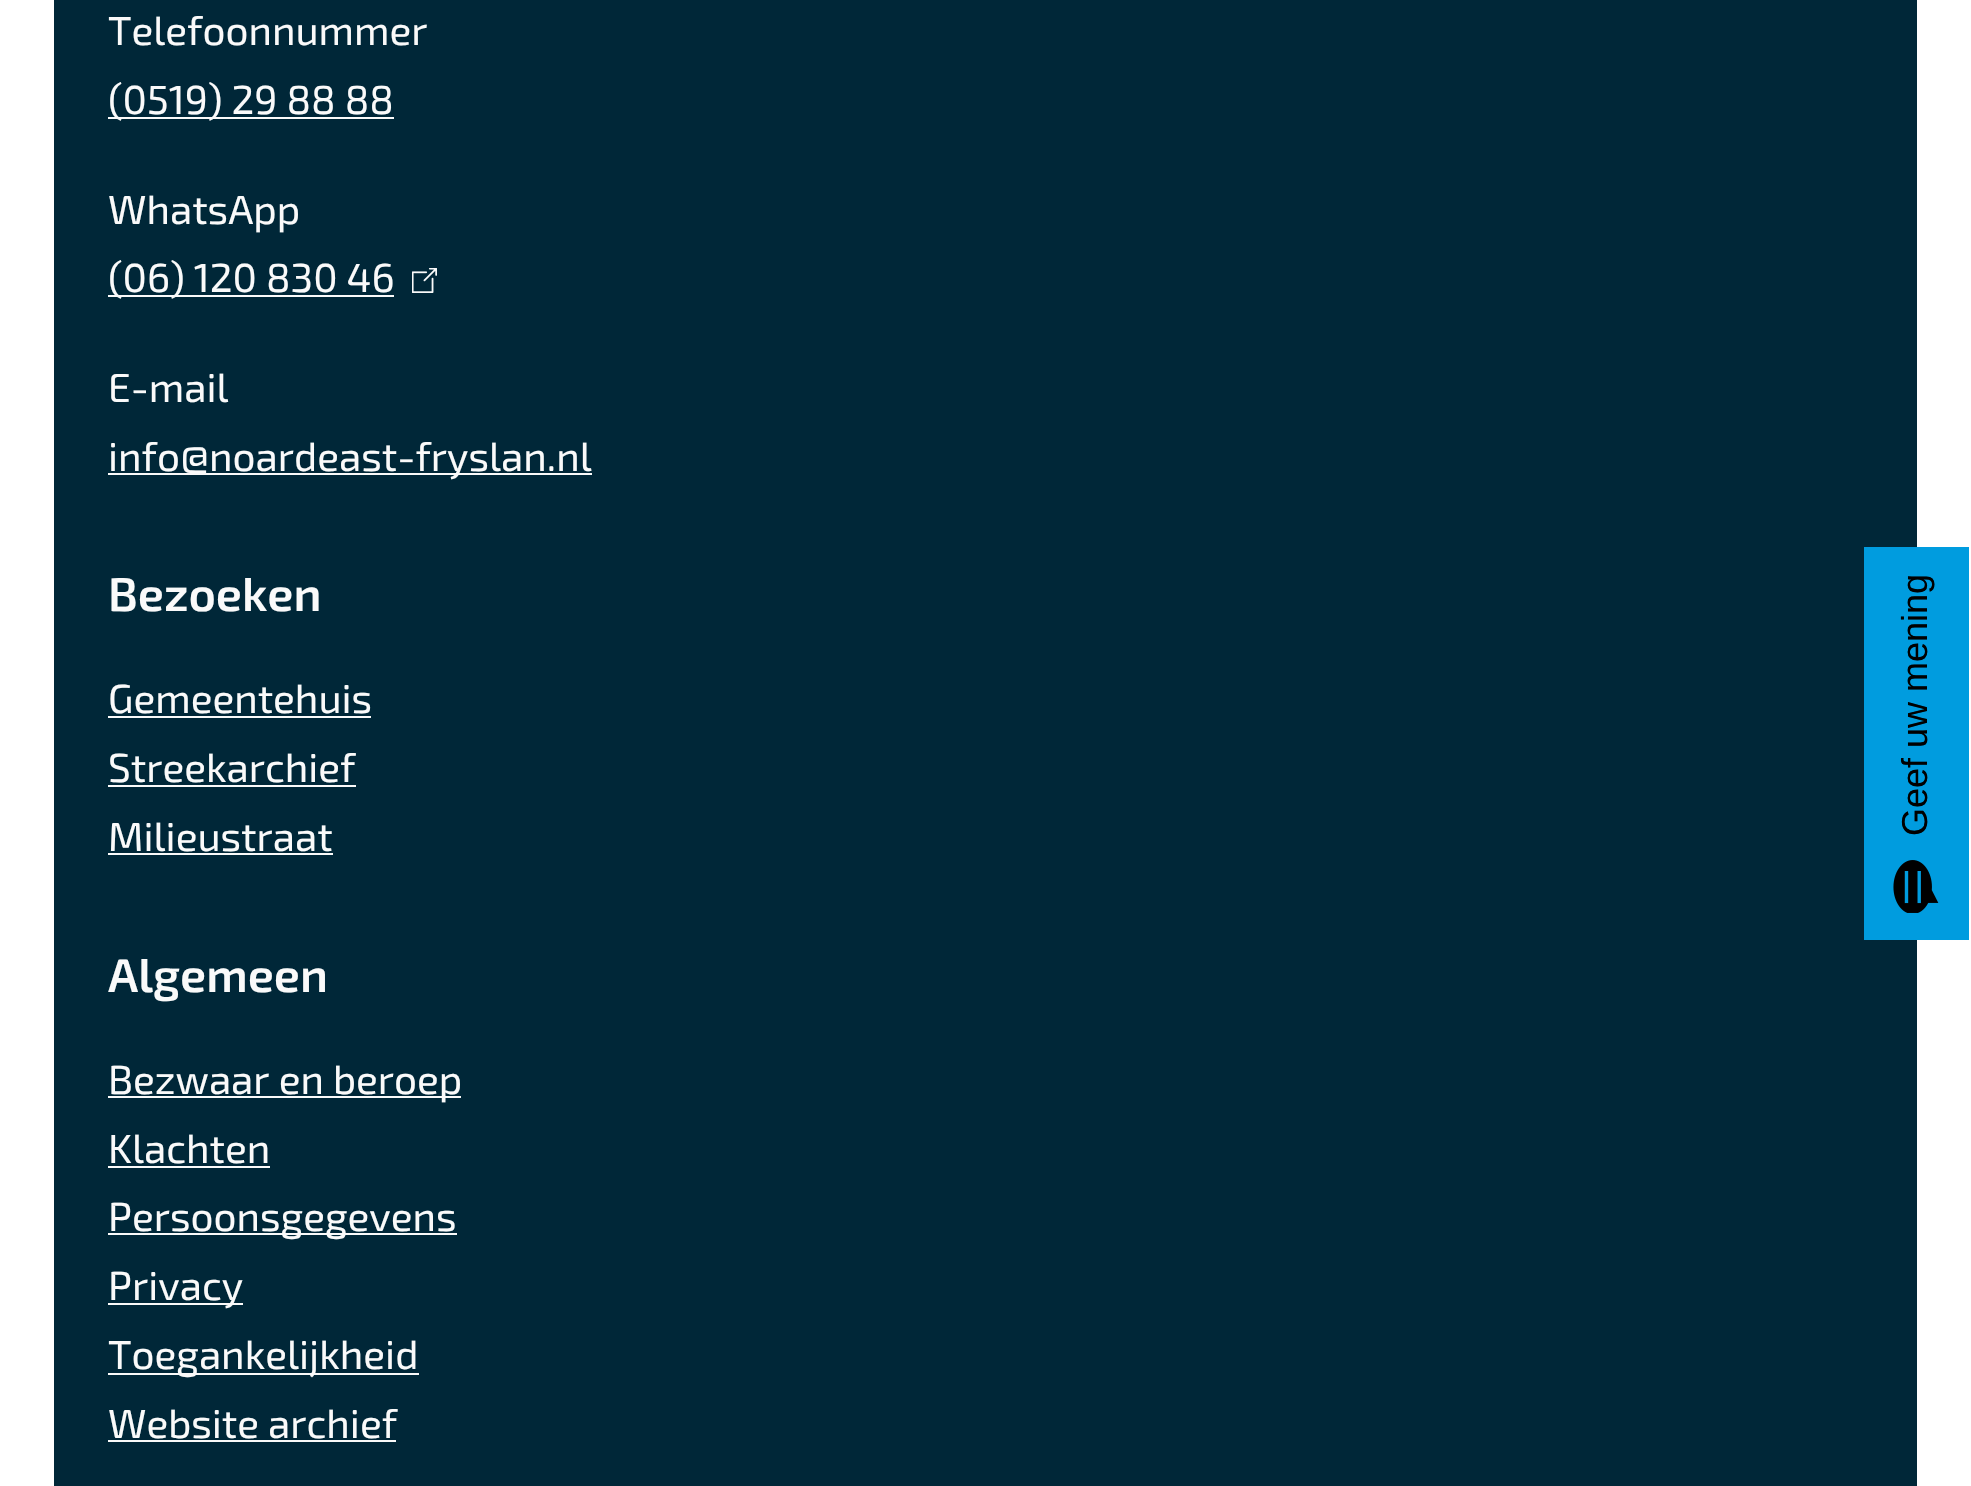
static SkFont makeFont(const char* family, int weight, float size, bool italic = false) {
  SkFontStyle style(weight, SkFontStyle::kNormal_Width,
    italic ? SkFontStyle::kItalic_Slant : SkFontStyle::kUpright_Slant);
  SkFont result(fontMgr->matchFamilyStyle(family, style), size);
  result.setSubpixel(true);
  return result;
}

static void text(SkCanvas* c, const char* s, float x, float y, const SkFont& font, SkColor color) {
  SkPaint ink(SkColor4f::FromColor(color));
  ink.setAntiAlias(true);
  c->drawString(s, x, y, font, ink);
}

static void box(SkCanvas* c, float l, float t, float r, float b, SkColor color) {
  SkPaint ink(SkColor4f::FromColor(color));
  ink.setAntiAlias(true);
  c->drawRect(SkRect::MakeLTRB(l, t, r, b), ink);
}

static void picture(SkCanvas* c, const char* path, float l, float t, float r, float b) {
  auto image = SkImages::DeferredFromEncodedData(SkData::MakeFromFileName(path));
  c->drawImageRect(image, SkRect::MakeLTRB(l, t, r, b), SkSamplingOptions());
}

void draw(SkCanvas* c) {
  SkPaint paint;
  paint.setAntiAlias(true);
  c->clear(0xffffffff);
  box(c, 54, 0, 1917, 1486, 0xff002738);
  SkFont face1 = makeFont("Exo 2", 400, 40.5f);
  text(c, "Telefoonnummer", 108, 45, face1, 0xfffafafa);
  box(c, 108, 117, 394, 119, 0xfffafafa);
  text(c, "(0519) 29 88 88", 108, 114, face1, 0xfffafafa);
  text(c, "WhatsApp", 108, 224, face1, 0xfffafafa);
  box(c, 108, 295, 394, 297, 0xfffafafa);
  text(c, "(06) 120 830 46", 108, 292, face1, 0xfffafafa);
  picture(c, "img_01.png", 412, 268, 437, 293);
  text(c, "E-mail", 108, 402, face1, 0xfffafafa);
  box(c, 108, 473, 592, 475, 0xfffafafa);
  text(c, "info@noardeast-fryslan.nl", 108, 471, face1, 0xfffafafa);
  SkFont face2 = makeFont("Exo 2", 600, 47.25f);
  text(c, "Bezoeken", 108, 611, face2, 0xfffafafa);
  text(c, "Gemeentehuis", 108, 713, face1, 0xfffafafa);
  box(c, 108, 716, 371, 718, 0xfffafafa);
  text(c, "Streekarchief", 108, 782, face1, 0xfffafafa);
  box(c, 108, 785, 356, 787, 0xfffafafa);
  text(c, "Milieustraat", 108, 851, face1, 0xfffafafa);
  box(c, 108, 853, 333, 855, 0xfffafafa);
  text(c, "Algemeen", 108, 992, face2, 0xfffafafa);
  box(c, 108, 1096, 461, 1098, 0xfffafafa);
  text(c, "Bezwaar en beroep", 108, 1094, face1, 0xfffafafa);
  text(c, "Klachten", 108, 1163, face1, 0xfffafafa);
  box(c, 108, 1166, 270, 1168, 0xfffafafa);
  box(c, 108, 1233, 457, 1235, 0xfffafafa);
  text(c, "Persoonsgegevens", 108, 1231, face1, 0xfffafafa);
  box(c, 108, 1303, 243, 1305, 0xfffafafa);
  text(c, "Privacy", 108, 1300, face1, 0xfffafafa);
  box(c, 108, 1373, 419, 1375, 0xfffafafa);
  text(c, "Toegankelijkheid", 108, 1369, face1, 0xfffafafa);
  text(c, "Website archief", 108, 1438, face1, 0xfffafafa);
  box(c, 108, 1440, 396, 1442, 0xfffafafa);
  box(c, 1864, 547, 1969, 940, 0xff009cdf);
  SkFont face3 = makeFont("Liberation Sans", 400, 36);
  c->save();
  c->rotate(-90, 1927, 836);
  text(c, "Geef uw mening", 1927, 836, face3, 0xff000000);
  c->restore();
  picture(c, "img_02.png", 1893, 860, 1939, 913);
}
